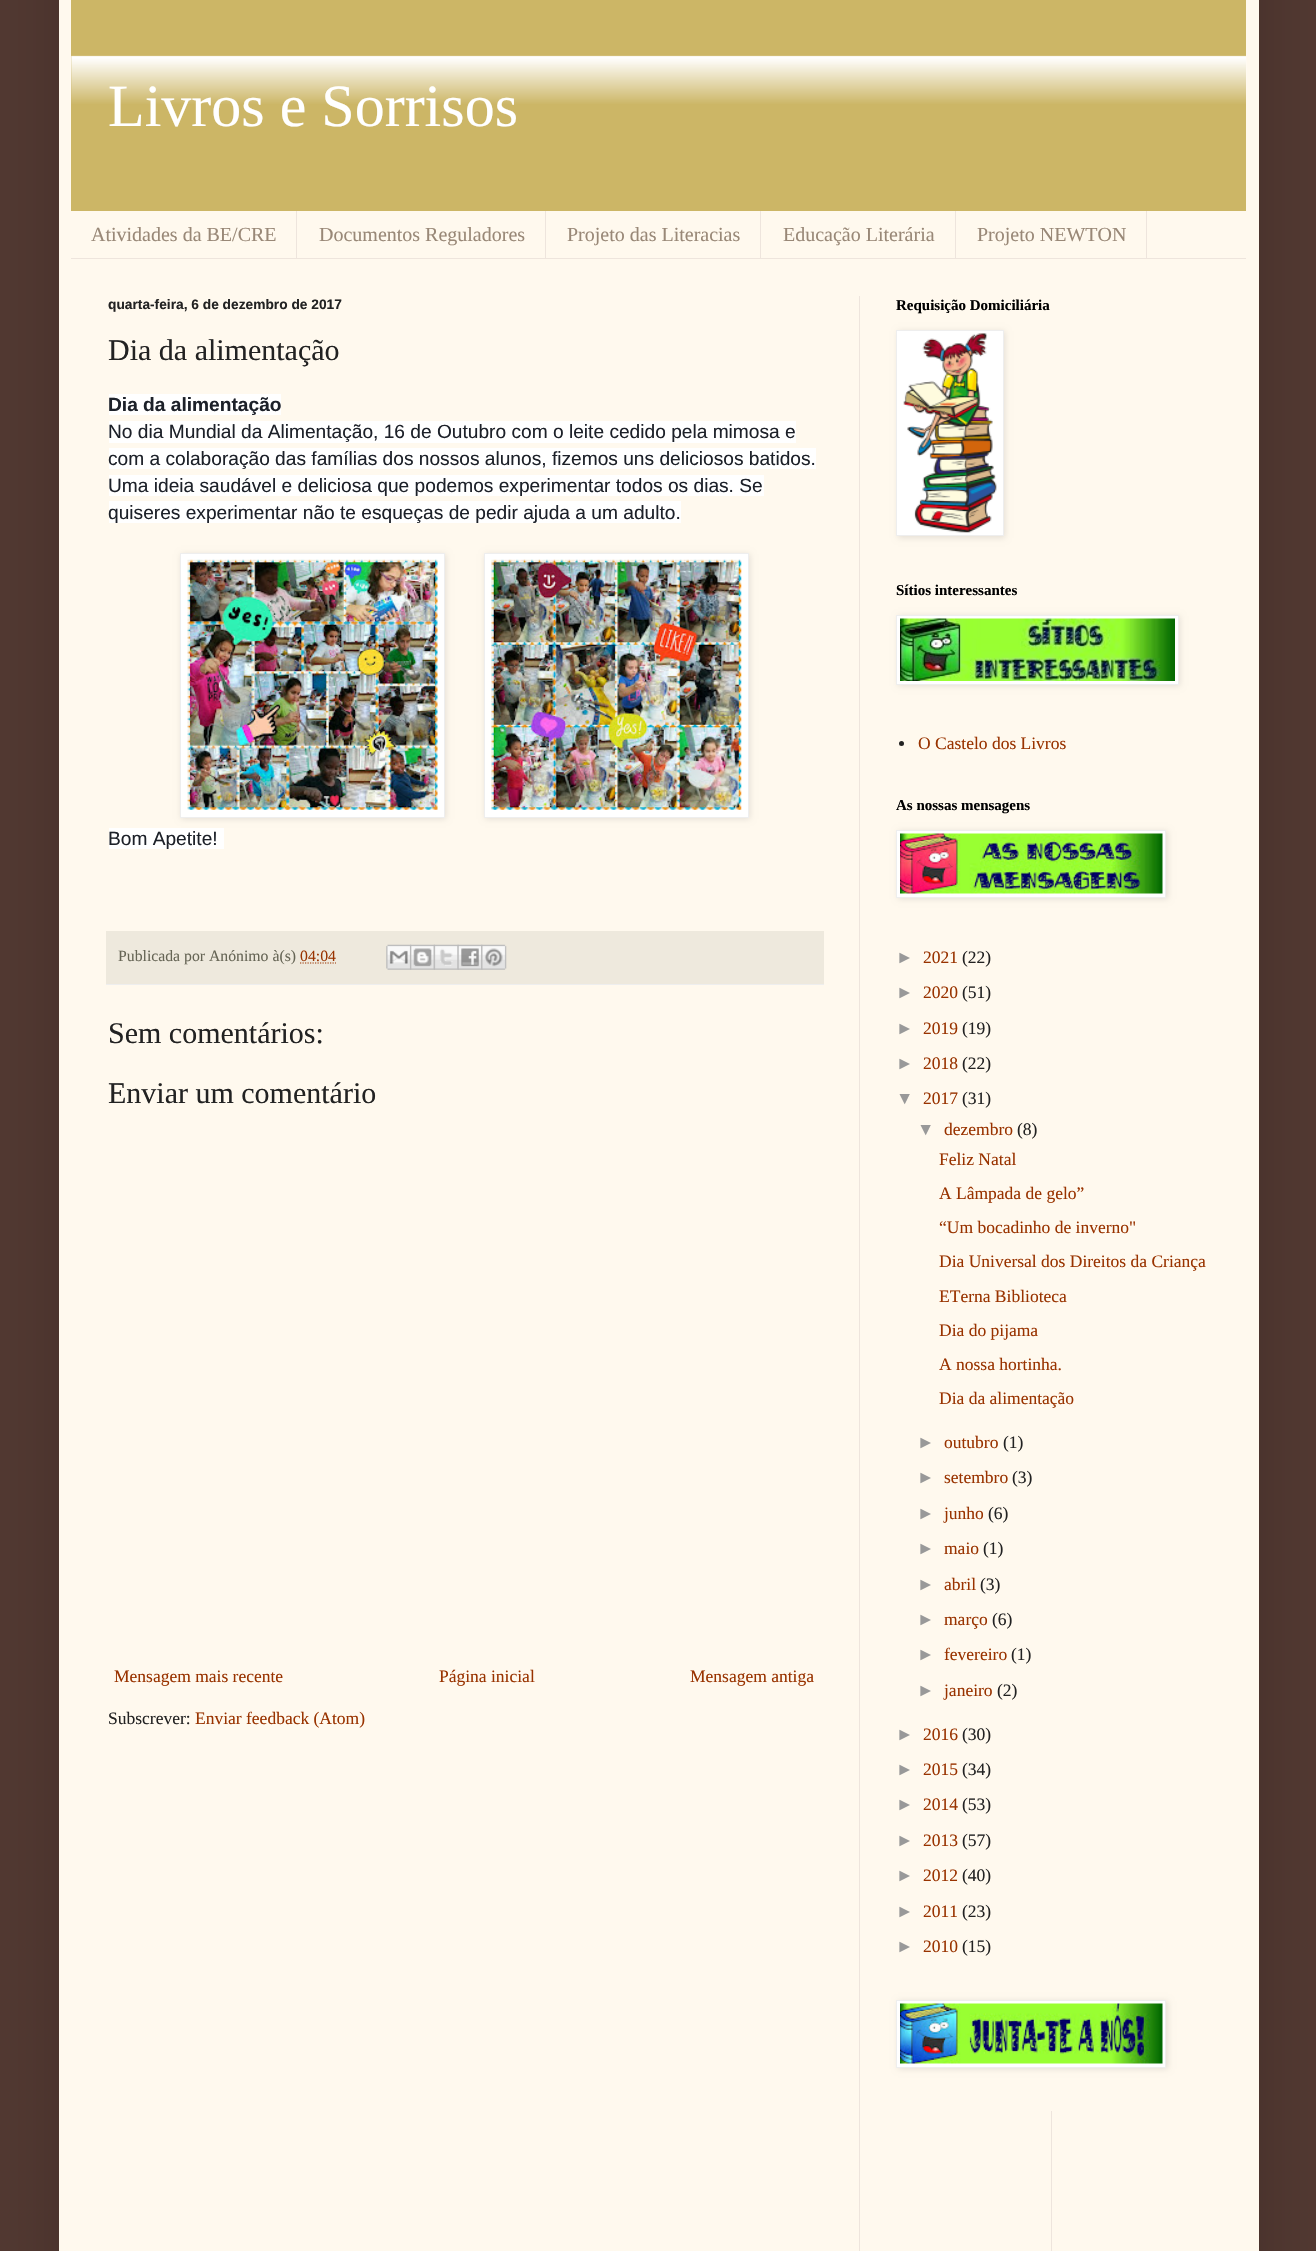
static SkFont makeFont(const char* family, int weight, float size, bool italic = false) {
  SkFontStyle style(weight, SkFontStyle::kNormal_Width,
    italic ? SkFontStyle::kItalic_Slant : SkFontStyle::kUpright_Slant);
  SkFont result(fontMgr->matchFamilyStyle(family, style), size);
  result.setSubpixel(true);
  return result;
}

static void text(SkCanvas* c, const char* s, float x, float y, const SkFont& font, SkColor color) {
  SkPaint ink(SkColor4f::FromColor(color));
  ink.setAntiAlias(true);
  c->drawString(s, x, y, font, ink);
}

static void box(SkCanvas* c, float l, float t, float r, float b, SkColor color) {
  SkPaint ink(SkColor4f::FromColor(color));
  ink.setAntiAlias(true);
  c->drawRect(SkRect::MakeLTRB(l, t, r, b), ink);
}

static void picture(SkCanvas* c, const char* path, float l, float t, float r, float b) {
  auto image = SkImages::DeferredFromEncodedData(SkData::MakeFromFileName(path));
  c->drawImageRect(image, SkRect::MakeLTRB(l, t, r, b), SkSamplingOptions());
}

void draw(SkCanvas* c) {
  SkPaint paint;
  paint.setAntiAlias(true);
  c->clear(0xff513831);
  paint.setColor(0x26000000);
  paint.setMaskFilter(SkMaskFilter::MakeBlur(kNormal_SkBlurStyle, 25));
  c->drawRect(SkRect::MakeLTRB(59, -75, 1259, 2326), paint);
  paint.setMaskFilter(nullptr);
  box(c, 59, 0, 1259, 2251, 0xfffff9ee);
  box(c, 71, 0, 1246, 211, 0xffccb666);
  picture(c, "img_01.png", 71, 55, 1247, 104);
  SkFont face1 = makeFont("Liberation Serif", 400, 60);
  text(c, "Livros e Sorrisos", 108, 126, face1, 0xffffffff);
  box(c, 71, 258, 1246, 259, 0xffeee5dd);
  box(c, 296, 211, 297, 258, 0xffeee5dd);
  SkFont face2 = makeFont("Liberation Serif", 400, 20);
  text(c, "Atividades da BE/CRE", 91, 241, face2, 0xff998877);
  box(c, 545, 211, 546, 258, 0xffeee5dd);
  text(c, "Documentos Reguladores", 319, 241, face2, 0xff998877);
  box(c, 760, 211, 761, 258, 0xffeee5dd);
  text(c, "Projeto das Literacias", 567, 241, face2, 0xff998877);
  box(c, 955, 211, 956, 258, 0xffeee5dd);
  text(c, "Educação Literária", 783, 241, face2, 0xff998877);
  box(c, 1146, 211, 1147, 258, 0xffeee5dd);
  text(c, "Projeto NEWTON", 977, 241, face2, 0xff998877);
  box(c, 859, 296, 860, 2251, 0xffeee5dd);
  SkFont face3 = makeFont("Liberation Sans", 700, 13.75f);
  text(c, "quarta-feira, 6 de dezembro de 2017", 108, 309, face3, 0xff222222);
  SkFont face4 = makeFont("Liberation Serif", 400, 30);
  text(c, "Dia da alimentação", 108, 360, face4, 0xff222222);
  box(c, 109, 394, 281, 415, 0xffffffff);
  SkFont face5 = makeFont("Liberation Sans", 700, 19.15f);
  text(c, "Dia da alimentação", 108, 411, face5, 0xff1d2129);
  box(c, 109, 421, 796, 443, 0xffffffff);
  SkFont face6 = makeFont("Liberation Sans", 400, 19.15f);
  text(c, "No dia Mundial da Alimentação, 16 de Outubro com o leite cedido pela mimosa e", 108, 438, face6, 0xff1d2129);
  box(c, 109, 448, 816, 469, 0xffffffff);
  text(c, "com a colaboração das famílias dos nossos alunos, fizemos uns deliciosos batidos.", 108, 465, face6, 0xff1d2129);
  box(c, 109, 475, 764, 496, 0xffffffff);
  text(c, "Uma ideia saudável e deliciosa que podemos experimentar todos os dias. Se", 108, 492, face6, 0xff1d2129);
  box(c, 109, 501, 681, 523, 0xffffffff);
  text(c, "quiseres experimentar não te esqueças de pedir ajuda a um adulto.", 108, 519, face6, 0xff1d2129);
  box(c, 109, 828, 224, 849, 0xffffffff);
  paint.setColor(0x1a000000);
  paint.setMaskFilter(SkMaskFilter::MakeBlur(kNormal_SkBlurStyle, 3));
  c->drawRect(SkRect::MakeLTRB(181, 554, 446, 819), paint);
  paint.setMaskFilter(nullptr);
  paint.setMaskFilter(SkMaskFilter::MakeBlur(kNormal_SkBlurStyle, 3));
  c->drawRect(SkRect::MakeLTRB(485, 554, 750, 819), paint);
  paint.setMaskFilter(nullptr);
  paint.setColor(0xffffffff);
  c->drawRect(SkRect::MakeLTRB(180.5f, 553.5f, 444.5f, 817.5f), paint);
  paint.setStyle(SkPaint::kStroke_Style);
  paint.setStrokeWidth(1);
  paint.setColor(0xffeeeeee);
  c->drawRect(SkRect::MakeLTRB(180.5f, 553.5f, 444.5f, 817.5f), paint);
  paint.setStyle(SkPaint::kFill_Style);
  paint.setColor(0xffffffff);
  c->drawRect(SkRect::MakeLTRB(484.5f, 553.5f, 748.5f, 817.5f), paint);
  paint.setStyle(SkPaint::kStroke_Style);
  paint.setColor(0xffeeeeee);
  c->drawRect(SkRect::MakeLTRB(484.5f, 553.5f, 748.5f, 817.5f), paint);
  picture(c, "img_02.png", 187, 559, 438, 810);
  picture(c, "img_03.png", 491, 559, 742, 810);
  text(c, "Bom Apetite!", 108, 845, face6, 0xff1d2129);
  box(c, 106, 931, 824, 984, 0xffeee9dd);
  box(c, 106, 984, 824, 985, 0xffeeeeee);
  SkFont face7 = makeFont("Liberation Serif", 400, 15.75f);
  text(c, "Publicada por Anónimo à(s)", 118, 961, face7, 0xff666555);
  text(c, "04:04", 300, 961, face7, 0xff993300);
  paint.setStrokeWidth(1.2f);
  paint.setColor(0xff993300);
  paint.setPathEffect(SkDashPathEffect::Make({{1.25f, 1.25f}}, 0));
  c->drawPath(SkPathBuilder().moveTo(300, 963).lineTo(336, 963).detach(), paint);
  paint.setPathEffect(nullptr);
  picture(c, "img_04.png", 386, 944, 412, 970);
  picture(c, "img_05.png", 410, 944, 435, 970);
  picture(c, "img_06.png", 433, 944, 459, 970);
  picture(c, "img_07.png", 457, 944, 483, 970);
  picture(c, "img_08.png", 481, 944, 507, 970);
  text(c, "Sem comentários:", 108, 1043, face4, 0xff222222);
  text(c, "Enviar um comentário", 108, 1103, face4, 0xff222222);
  SkFont face8 = makeFont("Liberation Serif", 400, 17.5f);
  text(c, "Mensagem mais recente", 114, 1682, face8, 0xff993300);
  text(c, "Página inicial", 439, 1682, face8, 0xff993300);
  text(c, "Mensagem antiga", 690, 1682, face8, 0xff993300);
  text(c, "Subscrever:", 108, 1724, face8, 0xff222222);
  text(c, "Enviar feedback (Atom)", 195, 1724, face8, 0xff993300);
  SkFont face9 = makeFont("Liberation Serif", 700, 15);
  text(c, "Requisição Domiciliária", 896, 310, face9, 0xff000000);
  paint.setStyle(SkPaint::kFill_Style);
  paint.setColor(0x1a000000);
  paint.setMaskFilter(SkMaskFilter::MakeBlur(kNormal_SkBlurStyle, 3));
  c->drawRect(SkRect::MakeLTRB(898, 331, 1005, 538), paint);
  paint.setMaskFilter(nullptr);
  paint.setColor(0xffffffff);
  c->drawRect(SkRect::MakeLTRB(896.5f, 330.5f, 1003.5f, 535.5f), paint);
  paint.setStyle(SkPaint::kStroke_Style);
  paint.setStrokeWidth(1);
  paint.setColor(0xffeeeeee);
  c->drawRect(SkRect::MakeLTRB(896.5f, 330.5f, 1003.5f, 535.5f), paint);
  picture(c, "img_09.png", 903, 333, 997, 533);
  text(c, "Sítios interessantes", 896, 595, face9, 0xff000000);
  paint.setStyle(SkPaint::kFill_Style);
  paint.setColor(0x1a000000);
  paint.setMaskFilter(SkMaskFilter::MakeBlur(kNormal_SkBlurStyle, 3));
  c->drawRect(SkRect::MakeLTRB(898, 616, 1180, 686), paint);
  paint.setMaskFilter(nullptr);
  paint.setColor(0xffffffff);
  c->drawRect(SkRect::MakeLTRB(896.5f, 615.5f, 1178.5f, 684.5f), paint);
  paint.setStyle(SkPaint::kStroke_Style);
  paint.setColor(0xffeeeeee);
  c->drawRect(SkRect::MakeLTRB(896.5f, 615.5f, 1178.5f, 684.5f), paint);
  picture(c, "img_10.png", 900, 618, 1175, 681);
  paint.setStyle(SkPaint::kFill_Style);
  paint.setColor(0xff222222);
  c->drawCircle(901.5f, 743.5f, 2.5f, paint);
  text(c, "O Castelo dos Livros", 918, 749, face8, 0xff993300);
  text(c, "As nossas mensagens", 896, 810, face9, 0xff000000);
  paint.setColor(0x1a000000);
  paint.setMaskFilter(SkMaskFilter::MakeBlur(kNormal_SkBlurStyle, 3));
  c->drawRect(SkRect::MakeLTRB(898, 831, 1168, 899), paint);
  paint.setMaskFilter(nullptr);
  paint.setColor(0xffffffff);
  c->drawRect(SkRect::MakeLTRB(896.5f, 830.5f, 1165.5f, 897.5f), paint);
  paint.setStyle(SkPaint::kStroke_Style);
  paint.setColor(0xffeeeeee);
  c->drawRect(SkRect::MakeLTRB(896.5f, 830.5f, 1165.5f, 897.5f), paint);
  picture(c, "img_11.png", 900, 833, 1163, 894);
  SkFont face10 = makeFont("Liberation Sans", 400, 17.5f);
  text(c, "►", 896, 963, face10, 0xff999999);
  text(c, "2021", 923, 963, face8, 0xff993300);
  text(c, "(22)", 962, 963, face8, 0xff222222);
  text(c, "►", 896, 998, face10, 0xff999999);
  text(c, "2020", 923, 998, face8, 0xff993300);
  text(c, "(51)", 962, 998, face8, 0xff222222);
  text(c, "►", 896, 1034, face10, 0xff999999);
  text(c, "2019", 923, 1034, face8, 0xff993300);
  text(c, "(19)", 962, 1034, face8, 0xff222222);
  text(c, "►", 896, 1069, face10, 0xff999999);
  text(c, "2018", 923, 1069, face8, 0xff993300);
  text(c, "(22)", 962, 1069, face8, 0xff222222);
  text(c, "▼", 896, 1104, face10, 0xff999999);
  text(c, "2017", 923, 1104, face8, 0xff993300);
  text(c, "(31)", 962, 1104, face8, 0xff222222);
  text(c, "▼", 917, 1135, face10, 0xff999999);
  text(c, "dezembro", 944, 1135, face8, 0xff993300);
  text(c, "(8)", 1017, 1135, face8, 0xff222222);
  text(c, "Feliz Natal", 939, 1165, face8, 0xff993300);
  text(c, "A Lâmpada de gelo”", 939, 1199, face8, 0xff993300);
  text(c, "“Um bocadinho de inverno\"", 939, 1233, face8, 0xff993300);
  text(c, "Dia Universal dos Direitos da Criança", 939, 1267, face8, 0xff993300);
  text(c, "ETerna Biblioteca", 939, 1302, face8, 0xff993300);
  text(c, "Dia do pijama", 939, 1336, face8, 0xff993300);
  text(c, "A nossa hortinha.", 939, 1370, face8, 0xff993300);
  text(c, "Dia da alimentação", 939, 1404, face8, 0xff993300);
  text(c, "►", 917, 1448, face10, 0xff999999);
  text(c, "outubro", 944, 1448, face8, 0xff993300);
  text(c, "(1)", 1003, 1448, face8, 0xff222222);
  text(c, "►", 917, 1483, face10, 0xff999999);
  text(c, "setembro", 944, 1483, face8, 0xff993300);
  text(c, "(3)", 1012, 1483, face8, 0xff222222);
  text(c, "►", 917, 1519, face10, 0xff999999);
  text(c, "junho", 944, 1519, face8, 0xff993300);
  text(c, "(6)", 988, 1519, face8, 0xff222222);
  text(c, "►", 917, 1554, face10, 0xff999999);
  text(c, "maio", 944, 1554, face8, 0xff993300);
  text(c, "(1)", 983, 1554, face8, 0xff222222);
  text(c, "►", 917, 1590, face10, 0xff999999);
  text(c, "abril", 944, 1590, face8, 0xff993300);
  text(c, "(3)", 980, 1590, face8, 0xff222222);
  text(c, "►", 917, 1625, face10, 0xff999999);
  text(c, "março", 944, 1625, face8, 0xff993300);
  text(c, "(6)", 992, 1625, face8, 0xff222222);
  text(c, "►", 917, 1660, face10, 0xff999999);
  text(c, "fevereiro", 944, 1660, face8, 0xff993300);
  text(c, "(1)", 1011, 1660, face8, 0xff222222);
  text(c, "►", 917, 1696, face10, 0xff999999);
  text(c, "janeiro", 944, 1696, face8, 0xff993300);
  text(c, "(2)", 997, 1696, face8, 0xff222222);
  text(c, "►", 896, 1740, face10, 0xff999999);
  text(c, "2016", 923, 1740, face8, 0xff993300);
  text(c, "(30)", 962, 1740, face8, 0xff222222);
  text(c, "►", 896, 1775, face10, 0xff999999);
  text(c, "2015", 923, 1775, face8, 0xff993300);
  text(c, "(34)", 962, 1775, face8, 0xff222222);
  text(c, "►", 896, 1810, face10, 0xff999999);
  text(c, "2014", 923, 1810, face8, 0xff993300);
  text(c, "(53)", 962, 1810, face8, 0xff222222);
  text(c, "►", 896, 1846, face10, 0xff999999);
  text(c, "2013", 923, 1846, face8, 0xff993300);
  text(c, "(57)", 962, 1846, face8, 0xff222222);
  text(c, "►", 896, 1881, face10, 0xff999999);
  text(c, "2012", 923, 1881, face8, 0xff993300);
  text(c, "(40)", 962, 1881, face8, 0xff222222);
  text(c, "►", 896, 1917, face10, 0xff999999);
  text(c, "2011", 923, 1917, face8, 0xff993300);
  text(c, "(23)", 962, 1917, face8, 0xff222222);
  text(c, "►", 896, 1952, face10, 0xff999999);
  text(c, "2010", 923, 1952, face8, 0xff993300);
  text(c, "(15)", 962, 1952, face8, 0xff222222);
  paint.setStyle(SkPaint::kFill_Style);
  paint.setColor(0x1a000000);
  paint.setMaskFilter(SkMaskFilter::MakeBlur(kNormal_SkBlurStyle, 3));
  c->drawRect(SkRect::MakeLTRB(898, 2001, 1168, 2069), paint);
  paint.setMaskFilter(nullptr);
  paint.setColor(0xffffffff);
  c->drawRect(SkRect::MakeLTRB(896.5f, 2000.5f, 1165.5f, 2067.5f), paint);
  paint.setStyle(SkPaint::kStroke_Style);
  paint.setColor(0xffeeeeee);
  c->drawRect(SkRect::MakeLTRB(896.5f, 2000.5f, 1165.5f, 2067.5f), paint);
  picture(c, "img_12.png", 900, 2003, 1163, 2064);
  box(c, 1051, 2111, 1052, 2251, 0xffeee5dd);
}
